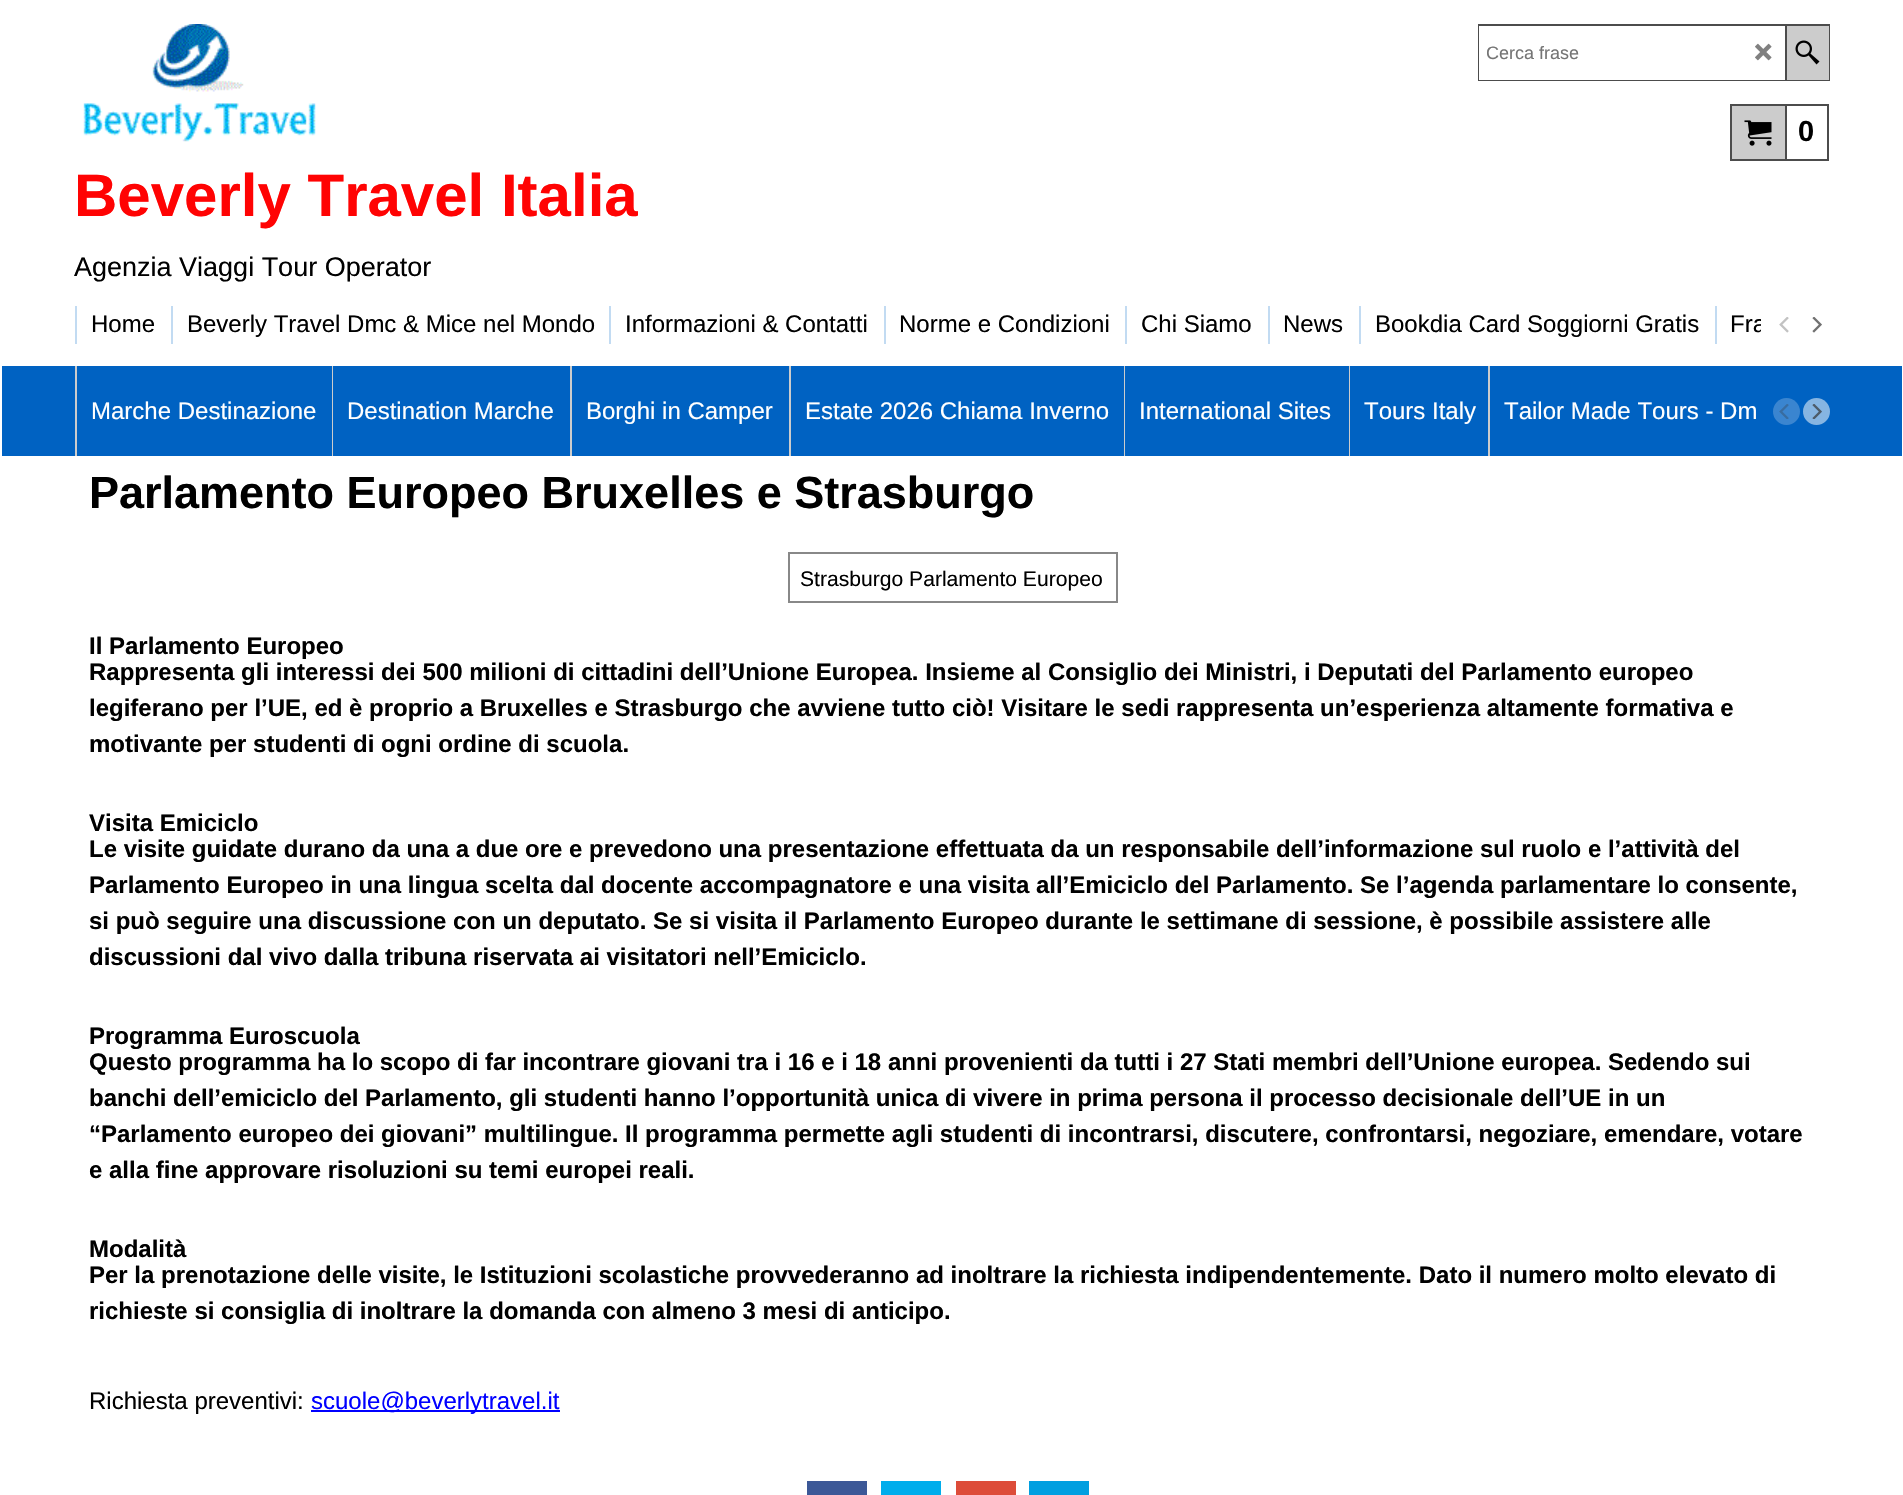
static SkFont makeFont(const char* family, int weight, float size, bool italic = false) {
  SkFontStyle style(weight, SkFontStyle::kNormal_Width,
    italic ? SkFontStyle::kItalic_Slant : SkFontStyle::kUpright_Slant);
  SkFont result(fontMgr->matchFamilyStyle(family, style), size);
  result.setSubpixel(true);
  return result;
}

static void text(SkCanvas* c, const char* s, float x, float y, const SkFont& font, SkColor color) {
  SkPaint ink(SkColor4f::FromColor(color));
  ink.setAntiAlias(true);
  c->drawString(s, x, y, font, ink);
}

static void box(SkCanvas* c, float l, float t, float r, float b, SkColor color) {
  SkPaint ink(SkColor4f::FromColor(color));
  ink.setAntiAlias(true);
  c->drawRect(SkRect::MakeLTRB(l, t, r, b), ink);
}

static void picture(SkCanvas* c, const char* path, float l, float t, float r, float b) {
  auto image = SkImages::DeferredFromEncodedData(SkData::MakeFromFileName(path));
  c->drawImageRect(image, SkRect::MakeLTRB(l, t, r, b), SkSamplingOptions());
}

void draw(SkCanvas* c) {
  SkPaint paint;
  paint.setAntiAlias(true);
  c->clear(0xffffffff);
  paint.setStyle(SkPaint::kStroke_Style);
  paint.setStrokeWidth(2);
  paint.setColor(0xff4c4c4c);
  c->drawRect(SkRect::MakeLTRB(1479, 25, 1829, 80), paint);
  box(c, 1479, 26, 1785, 80, 0xffffffff);
  c->save();
  c->clipRect(SkRect::MakeLTRB(1487, 42, 1748, 63));
  SkFont face1 = makeFont("Liberation Sans", 400, 18);
  text(c, "Cerca frase", 1486, 59, face1, 0xff757575);
  c->restore();
  picture(c, "img_01.png", 1755, 43, 1772, 61);
  box(c, 1787, 26, 1829, 80, 0xffcccccc);
  box(c, 1785, 26, 1787, 80, 0xff4c4c4c);
  picture(c, "img_02.png", 1795, 40, 1820, 65);
  paint.setStyle(SkPaint::kFill_Style);
  paint.setColor(0xffcccccc);
  c->drawRect(SkRect::MakeLTRB(1731, 105, 1786, 160), paint);
  paint.setStyle(SkPaint::kStroke_Style);
  paint.setColor(0xff4c4c4c);
  c->drawRect(SkRect::MakeLTRB(1731, 105, 1786, 160), paint);
  picture(c, "img_03.png", 1744, 120, 1772, 146);
  c->drawRect(SkRect::MakeLTRB(1786, 105, 1828, 160), paint);
  SkFont face2 = makeFont("Liberation Sans", 700, 29);
  text(c, "0", 1798, 141, face2, 0xff000000);
  picture(c, "img_04.png", 83, 24, 316, 142);
  SkFont face3 = makeFont("Liberation Sans", 700, 60);
  text(c, "Beverly Travel Italia", 74, 216, face3, 0xffff0303);
  SkFont face4 = makeFont("Liberation Sans", 400, 27);
  text(c, "Agenzia Viaggi Tour Operator", 74, 276, face4, 0xff000000);
  box(c, 75, 306, 77, 344, 0xffc2dbf2);
  SkFont face5 = makeFont("Liberation Sans", 400, 24);
  text(c, "Home", 91, 332, face5, 0xff000000);
  box(c, 171, 306, 173, 344, 0xffc2dbf2);
  text(c, "Beverly Travel Dmc & Mice nel Mondo", 187, 332, face5, 0xff000000);
  box(c, 609, 306, 611, 344, 0xffc2dbf2);
  text(c, "Informazioni & Contatti", 625, 332, face5, 0xff000000);
  box(c, 884, 306, 886, 344, 0xffc2dbf2);
  text(c, "Norme e Condizioni", 899, 332, face5, 0xff000000);
  box(c, 1125, 306, 1127, 344, 0xffc2dbf2);
  text(c, "Chi Siamo", 1141, 332, face5, 0xff000000);
  box(c, 1268, 306, 1270, 344, 0xffc2dbf2);
  text(c, "News", 1283, 332, face5, 0xff000000);
  box(c, 1359, 306, 1361, 344, 0xffc2dbf2);
  text(c, "Bookdia Card Soggiorni Gratis", 1375, 332, face5, 0xff000000);
  box(c, 1715, 306, 1717, 344, 0xffc2dbf2);
  c->save();
  c->clipRect(SkRect::MakeLTRB(75, 306, 1761, 344));
  text(c, "Fra", 1730, 332, face5, 0xff000000);
  c->restore();
  picture(c, "img_05.png", 1779, 317, 1789, 333);
  picture(c, "img_06.png", 1812, 317, 1822, 333);
  box(c, 2, 366, 1902, 456, 0xff0062c2);
  box(c, 75, 366, 77, 456, 0xffcccccc);
  text(c, "Marche Destinazione", 91, 419, face5, 0xffffffff);
  box(c, 332, 366, 333, 456, 0xffcccccc);
  text(c, "Destination Marche", 347, 419, face5, 0xffffffff);
  box(c, 570, 366, 572, 456, 0xffcccccc);
  text(c, "Borghi in Camper", 586, 419, face5, 0xffffffff);
  box(c, 789, 366, 791, 456, 0xffcccccc);
  text(c, "Estate 2026 Chiama Inverno", 805, 419, face5, 0xffffffff);
  box(c, 1124, 366, 1125, 456, 0xffcccccc);
  text(c, "International Sites", 1139, 419, face5, 0xffffffff);
  box(c, 1349, 366, 1350, 456, 0xffcccccc);
  text(c, "Tours Italy", 1364, 419, face5, 0xffffffff);
  box(c, 1488, 366, 1490, 456, 0xffcccccc);
  text(c, "Tailor Made Tours - Dm", 1504, 419, face5, 0xffffffff);
  paint.setStyle(SkPaint::kFill_Style);
  paint.setColor(0xff3a85d0);
  c->drawCircle(1786.5f, 411.5f, 13.5f, paint);
  picture(c, "img_07.png", 1779, 404, 1789, 419);
  paint.setColor(0xff86b5e2);
  c->drawCircle(1816.5f, 411.5f, 13.5f, paint);
  picture(c, "img_08.png", 1812, 404, 1822, 419);
  SkFont face6 = makeFont("Liberation Sans", 700, 45);
  text(c, "Parlamento Europeo Bruxelles e Strasburgo", 89, 508, face6, 0xff000000);
  paint.setStyle(SkPaint::kStroke_Style);
  paint.setColor(0xff888888);
  c->drawRect(SkRect::MakeLTRB(789, 553, 1117, 602), paint);
  SkFont face7 = makeFont("Liberation Sans", 400, 21.1f);
  text(c, "Strasburgo Parlamento Europeo", 800, 586, face7, 0xff000000);
  SkFont face8 = makeFont("Liberation Sans", 700, 24);
  text(c, "Il Parlamento Europeo", 89, 654, face8, 0xff000000);
  text(c, "Rappresenta gli interessi dei 500 milioni di cittadini dell’Unione Europea. Insieme al Consiglio dei Ministri, i Deputati del Parlamento europeo", 89, 680, face8, 0xff000000);
  text(c, "legiferano per l’UE, ed è proprio a Bruxelles e Strasburgo che avviene tutto ciò! Visitare le sedi rappresenta un’esperienza altamente formativa e", 89, 716, face8, 0xff000000);
  text(c, "motivante per studenti di ogni ordine di scuola.", 89, 752, face8, 0xff000000);
  text(c, "Visita Emiciclo", 89, 831, face8, 0xff000000);
  text(c, "Le visite guidate durano da una a due ore e prevedono una presentazione effettuata da un responsabile dell’informazione sul ruolo e l’attività del", 89, 857, face8, 0xff000000);
  text(c, "Parlamento Europeo in una lingua scelta dal docente accompagnatore e una visita all’Emiciclo del Parlamento. Se l’agenda parlamentare lo consente,", 89, 893, face8, 0xff000000);
  text(c, "si può seguire una discussione con un deputato. Se si visita il Parlamento Europeo durante le settimane di sessione, è possibile assistere alle", 89, 929, face8, 0xff000000);
  text(c, "discussioni dal vivo dalla tribuna riservata ai visitatori nell’Emiciclo.", 89, 965, face8, 0xff000000);
  text(c, "Programma Euroscuola", 89, 1044, face8, 0xff000000);
  text(c, "Questo programma ha lo scopo di far incontrare giovani tra i 16 e i 18 anni provenienti da tutti i 27 Stati membri dell’Unione europea. Sedendo sui", 89, 1070, face8, 0xff000000);
  text(c, "banchi dell’emiciclo del Parlamento, gli studenti hanno l’opportunità unica di vivere in prima persona il processo decisionale dell’UE in un", 89, 1106, face8, 0xff000000);
  text(c, "“Parlamento europeo dei giovani” multilingue. Il programma permette agli studenti di incontrarsi, discutere, confrontarsi, negoziare, emendare, votare", 89, 1142, face8, 0xff000000);
  text(c, "e alla fine approvare risoluzioni su temi europei reali.", 89, 1178, face8, 0xff000000);
  text(c, "Modalità", 89, 1257, face8, 0xff000000);
  text(c, "Per la prenotazione delle visite, le Istituzioni scolastiche provvederanno ad inoltrare la richiesta indipendentemente. Dato il numero molto elevato di", 89, 1283, face8, 0xff000000);
  text(c, "richieste si consiglia di inoltrare la domanda con almeno 3 mesi di anticipo.", 89, 1319, face8, 0xff000000);
  text(c, "Richiesta preventivi:", 89, 1409, face5, 0xff000000);
  box(c, 311, 1410, 560, 1412, 0xff0000ff);
  text(c, "scuole@beverlytravel.it", 311, 1409, face5, 0xff0000ff);
  box(c, 807, 1481, 867, 1495, 0xff3c5897);
  box(c, 881, 1481, 941, 1495, 0xff00adec);
  box(c, 956, 1481, 1016, 1495, 0xffdd4c39);
  box(c, 1029, 1481, 1089, 1495, 0xff019fe0);
}
